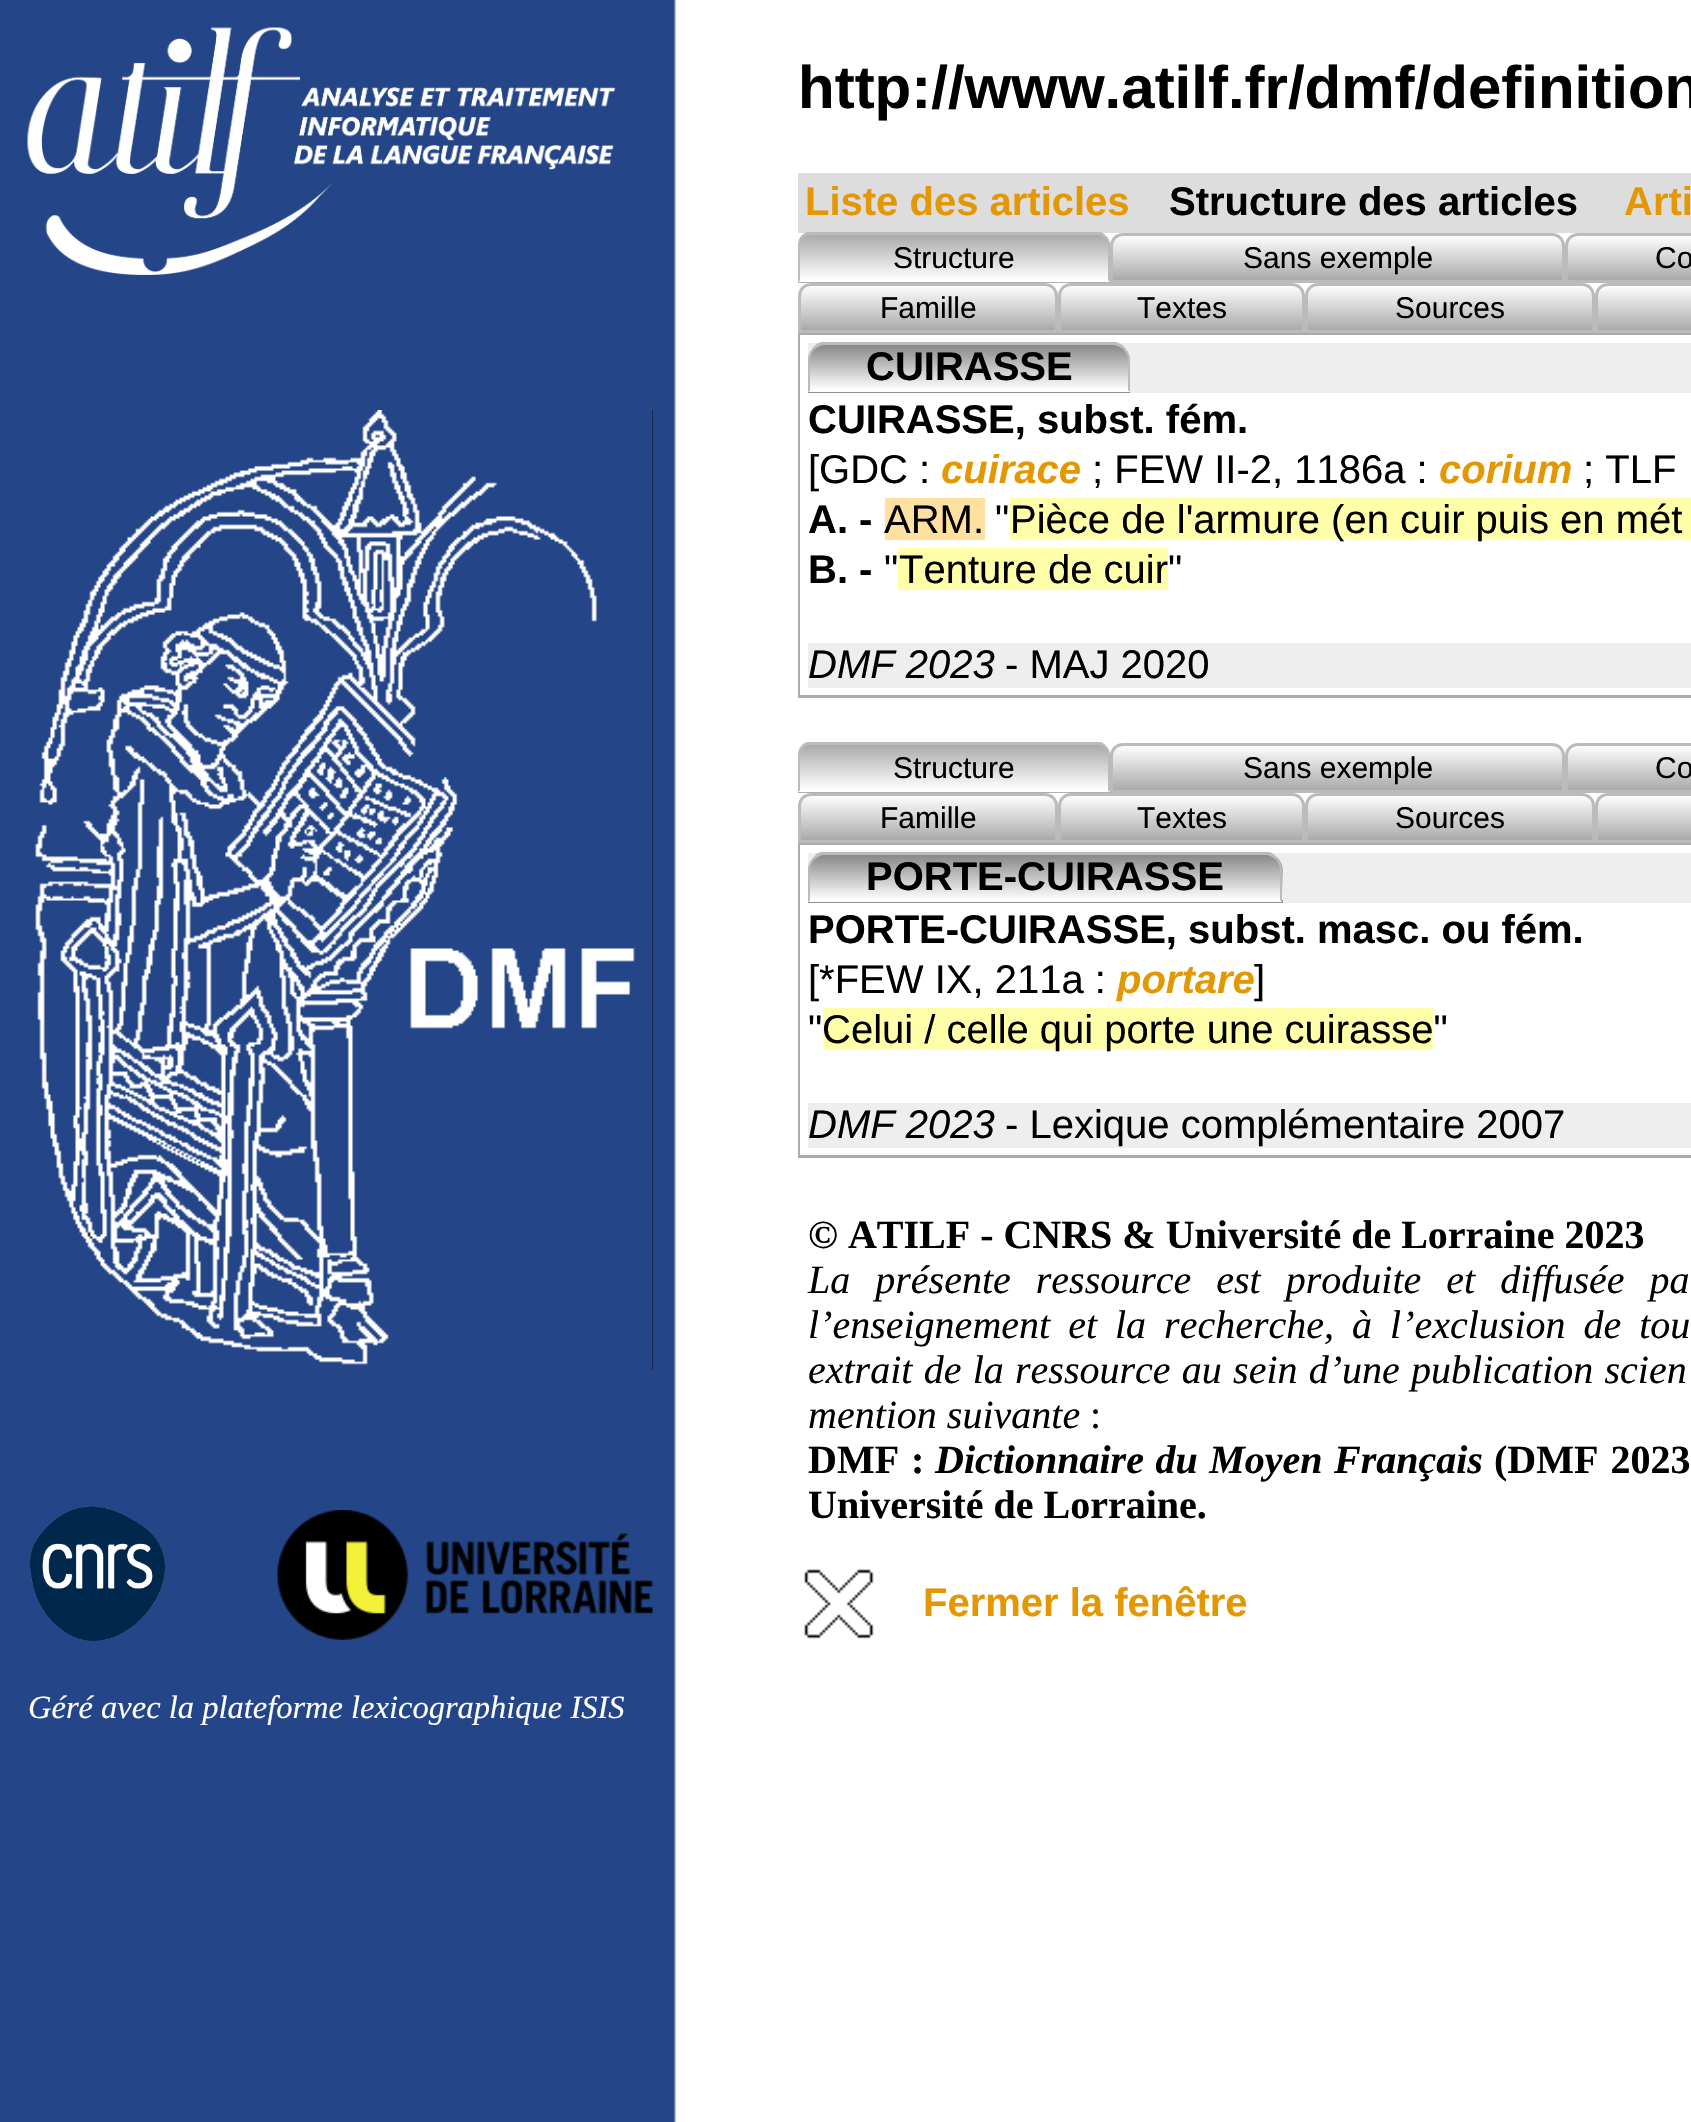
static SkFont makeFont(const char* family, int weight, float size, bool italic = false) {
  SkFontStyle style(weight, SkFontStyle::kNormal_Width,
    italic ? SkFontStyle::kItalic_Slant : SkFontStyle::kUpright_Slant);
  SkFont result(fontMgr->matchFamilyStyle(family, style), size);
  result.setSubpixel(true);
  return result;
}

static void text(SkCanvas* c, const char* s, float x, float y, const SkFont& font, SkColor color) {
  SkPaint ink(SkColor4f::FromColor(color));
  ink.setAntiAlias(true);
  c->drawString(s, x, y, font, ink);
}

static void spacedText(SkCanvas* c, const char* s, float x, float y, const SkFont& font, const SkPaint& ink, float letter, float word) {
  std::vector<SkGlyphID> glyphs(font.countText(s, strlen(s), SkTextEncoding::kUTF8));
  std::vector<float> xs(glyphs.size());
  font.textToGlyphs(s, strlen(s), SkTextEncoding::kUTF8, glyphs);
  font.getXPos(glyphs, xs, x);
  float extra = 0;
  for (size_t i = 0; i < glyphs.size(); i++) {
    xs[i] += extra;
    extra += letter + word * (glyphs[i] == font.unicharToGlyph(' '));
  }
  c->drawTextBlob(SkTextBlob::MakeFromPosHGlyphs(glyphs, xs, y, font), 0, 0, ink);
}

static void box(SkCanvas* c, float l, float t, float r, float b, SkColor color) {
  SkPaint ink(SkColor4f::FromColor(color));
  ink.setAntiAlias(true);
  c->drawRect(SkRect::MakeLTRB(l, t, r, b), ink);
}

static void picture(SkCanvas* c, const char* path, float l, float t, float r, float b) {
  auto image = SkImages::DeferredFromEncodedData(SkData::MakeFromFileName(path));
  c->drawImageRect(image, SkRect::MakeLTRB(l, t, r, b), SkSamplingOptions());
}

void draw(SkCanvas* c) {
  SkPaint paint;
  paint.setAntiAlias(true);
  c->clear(0xffffffff);
  picture(c, "img_01.png", 0, 0, 678, 2122);
  SkFont face1 = makeFont("Liberation Sans", 700, 60);
  text(c, "http://www.atilf.fr/dmf/definition", 798, 108, face1, 0xff000000);
  box(c, 798, 173, 1691, 233, 0xffdddddd);
  SkFont face2 = makeFont("Liberation Sans", 700, 40);
  text(c, "Liste des articles", 805, 215, face2, 0xffe39803);
  text(c, "Structure des articles", 1169, 215, face2, 0xff000000);
  text(c, "Arti", 1624, 215, face2, 0xffe39803);
  c->save();
  c->clipPath(SkPathBuilder().moveTo(811, 233).lineTo(1097, 233).cubicTo(1104, 233, 1110, 239, 1110, 246).lineTo(1110, 283).lineTo(798, 283).lineTo(798, 246).cubicTo(798, 239, 804, 233, 811, 233).close().detach(), true);
  {
    const SkColor colors[] = {0xffaaaaaa, 0xffffffff};
    const float stops[] = {0, 1};
    const SkPoint ends[] = {{954, 235}, {954, 280}};
    paint.setShader(SkGradientShader::MakeLinear(ends, colors, stops, 2, SkTileMode::kClamp));
    paint.setAlpha(255);
  }
  c->drawRect(SkRect::MakeLTRB(798, 235, 1110, 280), paint);
  c->restore();
  {
    const SkColor colors[] = {0xffaaaaaa, 0xffffffff};
    const float stops[] = {0, 1};
    const SkPoint ends[] = {{954, 280}, {954, 325}};
    paint.setShader(SkGradientShader::MakeLinear(ends, colors, stops, 2, SkTileMode::kClamp));
    paint.setAlpha(255);
  }
  c->drawRect(SkRect::MakeLTRB(798, 280, 1110, 283), paint);
  paint.setShader(nullptr);
  paint.setColor(0xffbbbbbb);
  c->drawPath(SkPathBuilder().moveTo(810, 235).cubicTo(807, 235, 804, 236, 803, 238).lineTo(801, 236).cubicTo(803, 234, 804, 233, 807, 232).lineTo(1101, 232).cubicTo(1103, 233, 1105, 234, 1106, 236).lineTo(1105, 238).cubicTo(1103, 236, 1100, 235, 1098, 235).close().detach(), paint);
  c->drawPath(SkPathBuilder().moveTo(1110, 282).lineTo(1110, 245).cubicTo(1110, 242, 1109, 238, 1106, 236).lineTo(1105, 238).cubicTo(1107, 239, 1108, 242, 1108, 245).lineTo(1108, 280).close().detach(), paint);
  paint.setColor(0xffffffff);
  c->drawPath(SkPathBuilder().moveTo(1110, 282).lineTo(798, 282).lineTo(800, 280).lineTo(1108, 280).close().detach(), paint);
  paint.setColor(0xffbbbbbb);
  c->drawPath(SkPathBuilder().moveTo(798, 282).lineTo(800, 280).lineTo(800, 245).cubicTo(800, 242, 801, 240, 803, 238).lineTo(801, 236).cubicTo(799, 238, 798, 242, 798, 245).close().detach(), paint);
  SkFont face3 = makeFont("Liberation Sans", 400, 30);
  text(c, "Structure", 893, 268, face3, 0xff000000);
  c->save();
  c->clipPath(SkPathBuilder().moveTo(1123, 233).lineTo(1552, 233).cubicTo(1559, 233, 1565, 239, 1565, 246).lineTo(1565, 283).lineTo(1110, 283).lineTo(1110, 246).cubicTo(1110, 239, 1116, 233, 1123, 233).close().detach(), true);
  {
    const SkColor colors[] = {0xffffffff, 0xffaaaaaa};
    const float stops[] = {0, 1};
    const SkPoint ends[] = {{1338, 235}, {1338, 280}};
    paint.setShader(SkGradientShader::MakeLinear(ends, colors, stops, 2, SkTileMode::kClamp));
    paint.setAlpha(255);
  }
  c->drawRect(SkRect::MakeLTRB(1110, 235, 1565, 280), paint);
  c->restore();
  paint.setStyle(SkPaint::kStroke_Style);
  paint.setStrokeWidth(3);
  paint.setShader(nullptr);
  paint.setColor(0xffbbbbbb);
  c->drawPath(SkPathBuilder().moveTo(1123, 234.5f).lineTo(1552, 234.5f).cubicTo(1558.5f, 234.5f, 1563.5f, 239.5f, 1563.5f, 246).lineTo(1563.5f, 281.5f).lineTo(1111.5f, 281.5f).lineTo(1111.5f, 246).cubicTo(1111.5f, 239.5f, 1116.5f, 234.5f, 1123, 234.5f).close().detach(), paint);
  text(c, "Sans exemple", 1243, 268, face3, 0xff000000);
  c->save();
  c->clipPath(SkPathBuilder().moveTo(1578, 233).lineTo(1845, 233).cubicTo(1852, 233, 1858, 239, 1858, 246).lineTo(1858, 283).lineTo(1565, 283).lineTo(1565, 246).cubicTo(1565, 239, 1571, 233, 1578, 233).close().detach(), true);
  paint.setStyle(SkPaint::kFill_Style);
  {
    const SkColor colors[] = {0xffffffff, 0xffaaaaaa};
    const float stops[] = {0, 1};
    const SkPoint ends[] = {{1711, 235}, {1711, 280}};
    paint.setShader(SkGradientShader::MakeLinear(ends, colors, stops, 2, SkTileMode::kClamp));
    paint.setAlpha(255);
  }
  c->drawRect(SkRect::MakeLTRB(1565, 235, 1691, 280), paint);
  c->restore();
  paint.setStyle(SkPaint::kStroke_Style);
  paint.setShader(nullptr);
  paint.setColor(0xffbbbbbb);
  c->drawPath(SkPathBuilder().moveTo(1578, 234.5f).lineTo(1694, 234.5f).cubicTo(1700.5f, 234.5f, 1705.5f, 239.5f, 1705.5f, 246).lineTo(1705.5f, 281.5f).lineTo(1566.5f, 281.5f).lineTo(1566.5f, 246).cubicTo(1566.5f, 239.5f, 1571.5f, 234.5f, 1578, 234.5f).close().detach(), paint);
  text(c, "Co", 1655, 268, face3, 0xff000000);
  c->save();
  c->clipPath(SkPathBuilder().moveTo(811, 283).lineTo(1045, 283).cubicTo(1052, 283, 1058, 289, 1058, 296).lineTo(1058, 333).lineTo(798, 333).lineTo(798, 296).cubicTo(798, 289, 804, 283, 811, 283).close().detach(), true);
  paint.setStyle(SkPaint::kFill_Style);
  {
    const SkColor colors[] = {0xffffffff, 0xffaaaaaa};
    const float stops[] = {0, 1};
    const SkPoint ends[] = {{928, 285}, {928, 330}};
    paint.setShader(SkGradientShader::MakeLinear(ends, colors, stops, 2, SkTileMode::kClamp));
    paint.setAlpha(255);
  }
  c->drawRect(SkRect::MakeLTRB(798, 285, 1058, 330), paint);
  c->restore();
  paint.setStyle(SkPaint::kStroke_Style);
  paint.setShader(nullptr);
  paint.setColor(0xffbbbbbb);
  c->drawPath(SkPathBuilder().moveTo(811, 284.5f).lineTo(1045, 284.5f).cubicTo(1051.5f, 284.5f, 1056.5f, 289.5f, 1056.5f, 296).lineTo(1056.5f, 331.5f).lineTo(799.5f, 331.5f).lineTo(799.5f, 296).cubicTo(799.5f, 289.5f, 804.5f, 284.5f, 811, 284.5f).close().detach(), paint);
  text(c, "Famille", 880, 318, face3, 0xff000000);
  c->save();
  c->clipPath(SkPathBuilder().moveTo(1071, 283).lineTo(1292, 283).cubicTo(1299, 283, 1305, 289, 1305, 296).lineTo(1305, 333).lineTo(1058, 333).lineTo(1058, 296).cubicTo(1058, 289, 1064, 283, 1071, 283).close().detach(), true);
  paint.setStyle(SkPaint::kFill_Style);
  {
    const SkColor colors[] = {0xffffffff, 0xffaaaaaa};
    const float stops[] = {0, 1};
    const SkPoint ends[] = {{1181, 285}, {1181, 330}};
    paint.setShader(SkGradientShader::MakeLinear(ends, colors, stops, 2, SkTileMode::kClamp));
    paint.setAlpha(255);
  }
  c->drawRect(SkRect::MakeLTRB(1058, 285, 1305, 330), paint);
  c->restore();
  paint.setStyle(SkPaint::kStroke_Style);
  paint.setShader(nullptr);
  paint.setColor(0xffbbbbbb);
  c->drawPath(SkPathBuilder().moveTo(1071, 284.5f).lineTo(1292, 284.5f).cubicTo(1298.5f, 284.5f, 1303.5f, 289.5f, 1303.5f, 296).lineTo(1303.5f, 331.5f).lineTo(1059.5f, 331.5f).lineTo(1059.5f, 296).cubicTo(1059.5f, 289.5f, 1064.5f, 284.5f, 1071, 284.5f).close().detach(), paint);
  text(c, "Textes", 1137, 318, face3, 0xff000000);
  c->save();
  c->clipPath(SkPathBuilder().moveTo(1318, 283).lineTo(1582, 283).cubicTo(1589, 283, 1595, 289, 1595, 296).lineTo(1595, 333).lineTo(1305, 333).lineTo(1305, 296).cubicTo(1305, 289, 1311, 283, 1318, 283).close().detach(), true);
  paint.setStyle(SkPaint::kFill_Style);
  {
    const SkColor colors[] = {0xffffffff, 0xffaaaaaa};
    const float stops[] = {0, 1};
    const SkPoint ends[] = {{1450, 285}, {1450, 330}};
    paint.setShader(SkGradientShader::MakeLinear(ends, colors, stops, 2, SkTileMode::kClamp));
    paint.setAlpha(255);
  }
  c->drawRect(SkRect::MakeLTRB(1305, 285, 1595, 330), paint);
  c->restore();
  paint.setStyle(SkPaint::kStroke_Style);
  paint.setShader(nullptr);
  paint.setColor(0xffbbbbbb);
  c->drawPath(SkPathBuilder().moveTo(1318, 284.5f).lineTo(1582, 284.5f).cubicTo(1588.5f, 284.5f, 1593.5f, 289.5f, 1593.5f, 296).lineTo(1593.5f, 331.5f).lineTo(1306.5f, 331.5f).lineTo(1306.5f, 296).cubicTo(1306.5f, 289.5f, 1311.5f, 284.5f, 1318, 284.5f).close().detach(), paint);
  text(c, "Sources", 1395, 318, face3, 0xff000000);
  c->save();
  c->clipPath(SkPathBuilder().moveTo(1608, 283).lineTo(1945, 283).cubicTo(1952, 283, 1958, 289, 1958, 296).lineTo(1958, 333).lineTo(1595, 333).lineTo(1595, 296).cubicTo(1595, 289, 1601, 283, 1608, 283).close().detach(), true);
  paint.setStyle(SkPaint::kFill_Style);
  {
    const SkColor colors[] = {0xffffffff, 0xffaaaaaa};
    const float stops[] = {0, 1};
    const SkPoint ends[] = {{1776, 285}, {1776, 330}};
    paint.setShader(SkGradientShader::MakeLinear(ends, colors, stops, 2, SkTileMode::kClamp));
    paint.setAlpha(255);
  }
  c->drawRect(SkRect::MakeLTRB(1595, 285, 1691, 330), paint);
  c->restore();
  paint.setStyle(SkPaint::kStroke_Style);
  paint.setShader(nullptr);
  paint.setColor(0xffbbbbbb);
  c->drawPath(SkPathBuilder().moveTo(1608, 284.5f).lineTo(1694, 284.5f).cubicTo(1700.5f, 284.5f, 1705.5f, 289.5f, 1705.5f, 296).lineTo(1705.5f, 331.5f).lineTo(1596.5f, 331.5f).lineTo(1596.5f, 296).cubicTo(1596.5f, 289.5f, 1601.5f, 284.5f, 1608, 284.5f).close().detach(), paint);
  box(c, 798, 333, 1691, 698, 0xffaaaaaa);
  box(c, 800, 335, 1691, 695, 0xffffffff);
  box(c, 808, 343, 1691, 393, 0xffeeeeee);
  c->save();
  c->clipPath(SkPathBuilder().moveTo(826, 343).lineTo(1112, 343).cubicTo(1122, 343, 1130, 351, 1130, 361).lineTo(1130, 393).lineTo(808, 393).lineTo(808, 361).cubicTo(808, 351, 816, 343, 826, 343).close().detach(), true);
  paint.setStyle(SkPaint::kFill_Style);
  {
    const SkColor colors[] = {0xff888888, 0xffffffff};
    const float stops[] = {0, 1};
    const SkPoint ends[] = {{969, 345}, {969, 390}};
    paint.setShader(SkGradientShader::MakeLinear(ends, colors, stops, 2, SkTileMode::kClamp));
    paint.setAlpha(255);
  }
  c->drawRect(SkRect::MakeLTRB(808, 345, 1130, 390), paint);
  c->restore();
  {
    const SkColor colors[] = {0xff888888, 0xffffffff};
    const float stops[] = {0, 1};
    const SkPoint ends[] = {{969, 390}, {969, 435}};
    paint.setShader(SkGradientShader::MakeLinear(ends, colors, stops, 2, SkTileMode::kClamp));
    paint.setAlpha(255);
  }
  c->drawRect(SkRect::MakeLTRB(808, 390, 1130, 393), paint);
  paint.setShader(nullptr);
  paint.setColor(0xffbbbbbb);
  c->drawPath(SkPathBuilder().moveTo(825, 345).cubicTo(821, 345, 817, 347, 814, 350).lineTo(813, 348).cubicTo(815, 345, 817, 343, 821, 342).lineTo(1116, 342).cubicTo(1120, 343, 1123, 345, 1125, 348).lineTo(1123, 349).cubicTo(1120, 347, 1116, 345, 1112, 345).close().detach(), paint);
  c->drawPath(SkPathBuilder().moveTo(1130, 392).lineTo(1130, 360).cubicTo(1130, 355, 1128, 351, 1125, 348).lineTo(1123, 349).cubicTo(1126, 352, 1128, 356, 1128, 360).lineTo(1128, 390).close().detach(), paint);
  paint.setColor(0xffffffff);
  c->drawPath(SkPathBuilder().moveTo(1130, 392).lineTo(808, 392).lineTo(810, 390).lineTo(1128, 390).close().detach(), paint);
  paint.setColor(0xffbbbbbb);
  c->drawPath(SkPathBuilder().moveTo(808, 392).lineTo(810, 390).lineTo(810, 360).cubicTo(810, 356, 812, 352, 814, 350).lineTo(813, 348).cubicTo(810, 351, 808, 355, 808, 360).close().detach(), paint);
  text(c, "CUIRASSE", 866, 380, face2, 0xff000000);
  text(c, "CUIRASSE, subst. fém.", 808, 433, face2, 0xff000000);
  SkFont face4 = makeFont("Liberation Sans", 400, 40);
  text(c, "[GDC :", 808, 483, face4, 0xff000000);
  SkFont face5 = makeFont("Liberation Sans", 700, 40, true);
  text(c, "cuirace", 941, 483, face5, 0xffe39803);
  text(c, "; FEW II-2, 1186a :", 1092, 483, face4, 0xff000000);
  text(c, "corium", 1439, 483, face5, 0xffe39803);
  text(c, "; TLF", 1583, 483, face4, 0xff000000);
  text(c, "A. -", 808, 533, face2, 0xff000000);
  box(c, 885, 498, 985, 540, 0xffffe0a0);
  text(c, "ARM. \"", 884, 533, face4, 0xff000000);
  box(c, 1010, 498, 1691, 540, 0xffffffaa);
  text(c, "Pièce de l'armure (en cuir puis en mét", 1010, 533, face4, 0xff000000);
  text(c, "B. -", 808, 583, face2, 0xff000000);
  text(c, "\"", 884, 583, face4, 0xff000000);
  box(c, 898, 548, 1168, 590, 0xffffffaa);
  text(c, "Tenture de cuir\"", 899, 583, face4, 0xff000000);
  box(c, 808, 643, 1691, 688, 0xffeeeeee);
  SkFont face6 = makeFont("Liberation Sans", 400, 40, true);
  text(c, "DMF 2023", 808, 678, face6, 0xff000000);
  text(c, "- MAJ 2020", 1005, 678, face4, 0xff000000);
  c->save();
  c->clipPath(SkPathBuilder().moveTo(811, 743).lineTo(1097, 743).cubicTo(1104, 743, 1110, 749, 1110, 756).lineTo(1110, 793).lineTo(798, 793).lineTo(798, 756).cubicTo(798, 749, 804, 743, 811, 743).close().detach(), true);
  {
    const SkColor colors[] = {0xffaaaaaa, 0xffffffff};
    const float stops[] = {0, 1};
    const SkPoint ends[] = {{954, 745}, {954, 790}};
    paint.setShader(SkGradientShader::MakeLinear(ends, colors, stops, 2, SkTileMode::kClamp));
    paint.setAlpha(255);
  }
  c->drawRect(SkRect::MakeLTRB(798, 745, 1110, 790), paint);
  c->restore();
  {
    const SkColor colors[] = {0xffaaaaaa, 0xffffffff};
    const float stops[] = {0, 1};
    const SkPoint ends[] = {{954, 790}, {954, 835}};
    paint.setShader(SkGradientShader::MakeLinear(ends, colors, stops, 2, SkTileMode::kClamp));
    paint.setAlpha(255);
  }
  c->drawRect(SkRect::MakeLTRB(798, 790, 1110, 793), paint);
  paint.setShader(nullptr);
  paint.setColor(0xffbbbbbb);
  c->drawPath(SkPathBuilder().moveTo(810, 745).cubicTo(807, 745, 804, 746, 803, 748).lineTo(801, 746).cubicTo(803, 744, 804, 743, 807, 742).lineTo(1101, 742).cubicTo(1103, 743, 1105, 744, 1106, 746).lineTo(1105, 748).cubicTo(1103, 746, 1100, 745, 1098, 745).close().detach(), paint);
  c->drawPath(SkPathBuilder().moveTo(1110, 792).lineTo(1110, 755).cubicTo(1110, 752, 1109, 748, 1106, 746).lineTo(1105, 748).cubicTo(1107, 749, 1108, 752, 1108, 755).lineTo(1108, 790).close().detach(), paint);
  paint.setColor(0xffffffff);
  c->drawPath(SkPathBuilder().moveTo(1110, 792).lineTo(798, 792).lineTo(800, 790).lineTo(1108, 790).close().detach(), paint);
  paint.setColor(0xffbbbbbb);
  c->drawPath(SkPathBuilder().moveTo(798, 792).lineTo(800, 790).lineTo(800, 755).cubicTo(800, 752, 801, 750, 803, 748).lineTo(801, 746).cubicTo(799, 748, 798, 752, 798, 755).close().detach(), paint);
  text(c, "Structure", 893, 778, face3, 0xff000000);
  c->save();
  c->clipPath(SkPathBuilder().moveTo(1123, 743).lineTo(1552, 743).cubicTo(1559, 743, 1565, 749, 1565, 756).lineTo(1565, 793).lineTo(1110, 793).lineTo(1110, 756).cubicTo(1110, 749, 1116, 743, 1123, 743).close().detach(), true);
  {
    const SkColor colors[] = {0xffffffff, 0xffaaaaaa};
    const float stops[] = {0, 1};
    const SkPoint ends[] = {{1338, 745}, {1338, 790}};
    paint.setShader(SkGradientShader::MakeLinear(ends, colors, stops, 2, SkTileMode::kClamp));
    paint.setAlpha(255);
  }
  c->drawRect(SkRect::MakeLTRB(1110, 745, 1565, 790), paint);
  c->restore();
  paint.setStyle(SkPaint::kStroke_Style);
  paint.setShader(nullptr);
  paint.setColor(0xffbbbbbb);
  c->drawPath(SkPathBuilder().moveTo(1123, 744.5f).lineTo(1552, 744.5f).cubicTo(1558.5f, 744.5f, 1563.5f, 749.5f, 1563.5f, 756).lineTo(1563.5f, 791.5f).lineTo(1111.5f, 791.5f).lineTo(1111.5f, 756).cubicTo(1111.5f, 749.5f, 1116.5f, 744.5f, 1123, 744.5f).close().detach(), paint);
  text(c, "Sans exemple", 1243, 778, face3, 0xff000000);
  c->save();
  c->clipPath(SkPathBuilder().moveTo(1578, 743).lineTo(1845, 743).cubicTo(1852, 743, 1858, 749, 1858, 756).lineTo(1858, 793).lineTo(1565, 793).lineTo(1565, 756).cubicTo(1565, 749, 1571, 743, 1578, 743).close().detach(), true);
  paint.setStyle(SkPaint::kFill_Style);
  {
    const SkColor colors[] = {0xffffffff, 0xffaaaaaa};
    const float stops[] = {0, 1};
    const SkPoint ends[] = {{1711, 745}, {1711, 790}};
    paint.setShader(SkGradientShader::MakeLinear(ends, colors, stops, 2, SkTileMode::kClamp));
    paint.setAlpha(255);
  }
  c->drawRect(SkRect::MakeLTRB(1565, 745, 1691, 790), paint);
  c->restore();
  paint.setStyle(SkPaint::kStroke_Style);
  paint.setShader(nullptr);
  paint.setColor(0xffbbbbbb);
  c->drawPath(SkPathBuilder().moveTo(1578, 744.5f).lineTo(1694, 744.5f).cubicTo(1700.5f, 744.5f, 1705.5f, 749.5f, 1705.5f, 756).lineTo(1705.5f, 791.5f).lineTo(1566.5f, 791.5f).lineTo(1566.5f, 756).cubicTo(1566.5f, 749.5f, 1571.5f, 744.5f, 1578, 744.5f).close().detach(), paint);
  text(c, "Co", 1655, 778, face3, 0xff000000);
  c->save();
  c->clipPath(SkPathBuilder().moveTo(811, 793).lineTo(1045, 793).cubicTo(1052, 793, 1058, 799, 1058, 806).lineTo(1058, 843).lineTo(798, 843).lineTo(798, 806).cubicTo(798, 799, 804, 793, 811, 793).close().detach(), true);
  paint.setStyle(SkPaint::kFill_Style);
  {
    const SkColor colors[] = {0xffffffff, 0xffaaaaaa};
    const float stops[] = {0, 1};
    const SkPoint ends[] = {{928, 795}, {928, 840}};
    paint.setShader(SkGradientShader::MakeLinear(ends, colors, stops, 2, SkTileMode::kClamp));
    paint.setAlpha(255);
  }
  c->drawRect(SkRect::MakeLTRB(798, 795, 1058, 840), paint);
  c->restore();
  paint.setStyle(SkPaint::kStroke_Style);
  paint.setShader(nullptr);
  paint.setColor(0xffbbbbbb);
  c->drawPath(SkPathBuilder().moveTo(811, 794.5f).lineTo(1045, 794.5f).cubicTo(1051.5f, 794.5f, 1056.5f, 799.5f, 1056.5f, 806).lineTo(1056.5f, 841.5f).lineTo(799.5f, 841.5f).lineTo(799.5f, 806).cubicTo(799.5f, 799.5f, 804.5f, 794.5f, 811, 794.5f).close().detach(), paint);
  text(c, "Famille", 880, 828, face3, 0xff000000);
  c->save();
  c->clipPath(SkPathBuilder().moveTo(1071, 793).lineTo(1292, 793).cubicTo(1299, 793, 1305, 799, 1305, 806).lineTo(1305, 843).lineTo(1058, 843).lineTo(1058, 806).cubicTo(1058, 799, 1064, 793, 1071, 793).close().detach(), true);
  paint.setStyle(SkPaint::kFill_Style);
  {
    const SkColor colors[] = {0xffffffff, 0xffaaaaaa};
    const float stops[] = {0, 1};
    const SkPoint ends[] = {{1181, 795}, {1181, 840}};
    paint.setShader(SkGradientShader::MakeLinear(ends, colors, stops, 2, SkTileMode::kClamp));
    paint.setAlpha(255);
  }
  c->drawRect(SkRect::MakeLTRB(1058, 795, 1305, 840), paint);
  c->restore();
  paint.setStyle(SkPaint::kStroke_Style);
  paint.setShader(nullptr);
  paint.setColor(0xffbbbbbb);
  c->drawPath(SkPathBuilder().moveTo(1071, 794.5f).lineTo(1292, 794.5f).cubicTo(1298.5f, 794.5f, 1303.5f, 799.5f, 1303.5f, 806).lineTo(1303.5f, 841.5f).lineTo(1059.5f, 841.5f).lineTo(1059.5f, 806).cubicTo(1059.5f, 799.5f, 1064.5f, 794.5f, 1071, 794.5f).close().detach(), paint);
  text(c, "Textes", 1137, 828, face3, 0xff000000);
  c->save();
  c->clipPath(SkPathBuilder().moveTo(1318, 793).lineTo(1582, 793).cubicTo(1589, 793, 1595, 799, 1595, 806).lineTo(1595, 843).lineTo(1305, 843).lineTo(1305, 806).cubicTo(1305, 799, 1311, 793, 1318, 793).close().detach(), true);
  paint.setStyle(SkPaint::kFill_Style);
  {
    const SkColor colors[] = {0xffffffff, 0xffaaaaaa};
    const float stops[] = {0, 1};
    const SkPoint ends[] = {{1450, 795}, {1450, 840}};
    paint.setShader(SkGradientShader::MakeLinear(ends, colors, stops, 2, SkTileMode::kClamp));
    paint.setAlpha(255);
  }
  c->drawRect(SkRect::MakeLTRB(1305, 795, 1595, 840), paint);
  c->restore();
  paint.setStyle(SkPaint::kStroke_Style);
  paint.setShader(nullptr);
  paint.setColor(0xffbbbbbb);
  c->drawPath(SkPathBuilder().moveTo(1318, 794.5f).lineTo(1582, 794.5f).cubicTo(1588.5f, 794.5f, 1593.5f, 799.5f, 1593.5f, 806).lineTo(1593.5f, 841.5f).lineTo(1306.5f, 841.5f).lineTo(1306.5f, 806).cubicTo(1306.5f, 799.5f, 1311.5f, 794.5f, 1318, 794.5f).close().detach(), paint);
  text(c, "Sources", 1395, 828, face3, 0xff000000);
  c->save();
  c->clipPath(SkPathBuilder().moveTo(1608, 793).lineTo(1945, 793).cubicTo(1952, 793, 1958, 799, 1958, 806).lineTo(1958, 843).lineTo(1595, 843).lineTo(1595, 806).cubicTo(1595, 799, 1601, 793, 1608, 793).close().detach(), true);
  paint.setStyle(SkPaint::kFill_Style);
  {
    const SkColor colors[] = {0xffffffff, 0xffaaaaaa};
    const float stops[] = {0, 1};
    const SkPoint ends[] = {{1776, 795}, {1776, 840}};
    paint.setShader(SkGradientShader::MakeLinear(ends, colors, stops, 2, SkTileMode::kClamp));
    paint.setAlpha(255);
  }
  c->drawRect(SkRect::MakeLTRB(1595, 795, 1691, 840), paint);
  c->restore();
  paint.setStyle(SkPaint::kStroke_Style);
  paint.setShader(nullptr);
  paint.setColor(0xffbbbbbb);
  c->drawPath(SkPathBuilder().moveTo(1608, 794.5f).lineTo(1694, 794.5f).cubicTo(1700.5f, 794.5f, 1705.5f, 799.5f, 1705.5f, 806).lineTo(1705.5f, 841.5f).lineTo(1596.5f, 841.5f).lineTo(1596.5f, 806).cubicTo(1596.5f, 799.5f, 1601.5f, 794.5f, 1608, 794.5f).close().detach(), paint);
  box(c, 798, 843, 1691, 1158, 0xffaaaaaa);
  box(c, 800, 845, 1691, 1155, 0xffffffff);
  box(c, 808, 853, 1691, 903, 0xffeeeeee);
  c->save();
  c->clipPath(SkPathBuilder().moveTo(826, 853).lineTo(1265, 853).cubicTo(1275, 853, 1283, 861, 1283, 871).lineTo(1283, 903).lineTo(808, 903).lineTo(808, 871).cubicTo(808, 861, 816, 853, 826, 853).close().detach(), true);
  paint.setStyle(SkPaint::kFill_Style);
  {
    const SkColor colors[] = {0xff888888, 0xffffffff};
    const float stops[] = {0, 1};
    const SkPoint ends[] = {{1045, 855}, {1045, 900}};
    paint.setShader(SkGradientShader::MakeLinear(ends, colors, stops, 2, SkTileMode::kClamp));
    paint.setAlpha(255);
  }
  c->drawRect(SkRect::MakeLTRB(808, 855, 1283, 900), paint);
  c->restore();
  {
    const SkColor colors[] = {0xff888888, 0xffffffff};
    const float stops[] = {0, 1};
    const SkPoint ends[] = {{1045, 900}, {1045, 945}};
    paint.setShader(SkGradientShader::MakeLinear(ends, colors, stops, 2, SkTileMode::kClamp));
    paint.setAlpha(255);
  }
  c->drawRect(SkRect::MakeLTRB(808, 900, 1283, 903), paint);
  paint.setShader(nullptr);
  paint.setColor(0xffbbbbbb);
  c->drawPath(SkPathBuilder().moveTo(825, 855).cubicTo(821, 855, 817, 857, 814, 860).lineTo(813, 858).cubicTo(815, 855, 817, 853, 821, 852).lineTo(1269, 852).cubicTo(1273, 853, 1275, 855, 1277, 858).lineTo(1276, 860).cubicTo(1273, 857, 1269, 855, 1265, 855).close().detach(), paint);
  c->drawPath(SkPathBuilder().moveTo(1277, 858).cubicTo(1280, 861, 1282, 865, 1282, 870).lineTo(1282, 902).lineTo(1280, 900).lineTo(1280, 870).cubicTo(1280, 866, 1278, 862, 1276, 860).close().detach(), paint);
  paint.setColor(0xffffffff);
  c->drawPath(SkPathBuilder().moveTo(1282, 902).lineTo(1280, 900).lineTo(810, 900).lineTo(808, 902).close().detach(), paint);
  paint.setColor(0xffbbbbbb);
  c->drawPath(SkPathBuilder().moveTo(808, 902).lineTo(810, 900).lineTo(810, 870).cubicTo(810, 866, 812, 862, 814, 860).lineTo(813, 858).cubicTo(810, 861, 808, 865, 808, 870).close().detach(), paint);
  text(c, "PORTE-CUIRASSE", 866, 890, face2, 0xff000000);
  text(c, "PORTE-CUIRASSE, subst. masc. ou fém.", 808, 943, face2, 0xff000000);
  text(c, "[*FEW IX, 211a :", 808, 993, face4, 0xff000000);
  text(c, "portare", 1117, 993, face5, 0xffe39803);
  text(c, "]", 1254, 993, face4, 0xff000000);
  text(c, "\"", 808, 1043, face4, 0xff000000);
  box(c, 823, 1008, 1433, 1050, 0xffffffaa);
  text(c, "Celui / celle qui porte une cuirasse\"", 822, 1043, face4, 0xff000000);
  box(c, 808, 1103, 1691, 1148, 0xffeeeeee);
  text(c, "DMF 2023", 808, 1138, face6, 0xff000000);
  text(c, "- Lexique complémentaire 2007", 1005, 1138, face4, 0xff000000);
  SkFont face7 = makeFont("Liberation Serif", 700, 40);
  text(c, "© ATILF - CNRS & Université de Lorraine 2023", 808, 1248, face7, 0xff000000);
  SkFont face8 = makeFont("Liberation Serif", 400, 40, true);
  paint.setColor(0xff000000);
  spacedText(c, "La présente ressource est produite et diffusée pa", 808, 1293, face8, paint, 0, 15);
  spacedText(c, "l’enseignement et la recherche, à l’exclusion de tou", 808, 1338, face8, paint, 0, 8);
  spacedText(c, "extrait de la ressource au sein d’une publication scien", 808, 1383, face8, paint, 0, 1.25f);
  text(c, "mention suivante", 808, 1428, face8, 0xff000000);
  SkFont face9 = makeFont("Liberation Serif", 400, 40);
  text(c, ":", 1090, 1428, face9, 0xff000000);
  spacedText(c, "DMF :", 808, 1473, face7, paint, 0, 2);
  SkFont face10 = makeFont("Liberation Serif", 700, 40, true);
  spacedText(c, "Dictionnaire du Moyen Français", 935, 1473, face10, paint, 0, 1.5f);
  spacedText(c, "(DMF 2023", 1494, 1473, face7, paint, 0, 2);
  text(c, "Université de Lorraine.", 808, 1518, face7, 0xff000000);
  picture(c, "img_02.png", 804, 1569, 874, 1639);
  text(c, "Fermer la fenêtre", 923, 1616, face2, 0xffe39803);
  picture(c, "img_03.png", 27, 27, 615, 275);
  box(c, 652, 410, 653, 1370, 0xff0a0a0a);
  picture(c, "img_04.png", 28, 410, 653, 1370);
  picture(c, "img_05.png", 29, 1506, 166, 1642);
  picture(c, "img_06.png", 277, 1510, 653, 1640);
  SkFont face11 = makeFont("Liberation Serif", 400, 32.5f, true);
  text(c, "Géré avec la plateforme lexicographique ISIS", 28, 1718, face11, 0xffffffff);
}
